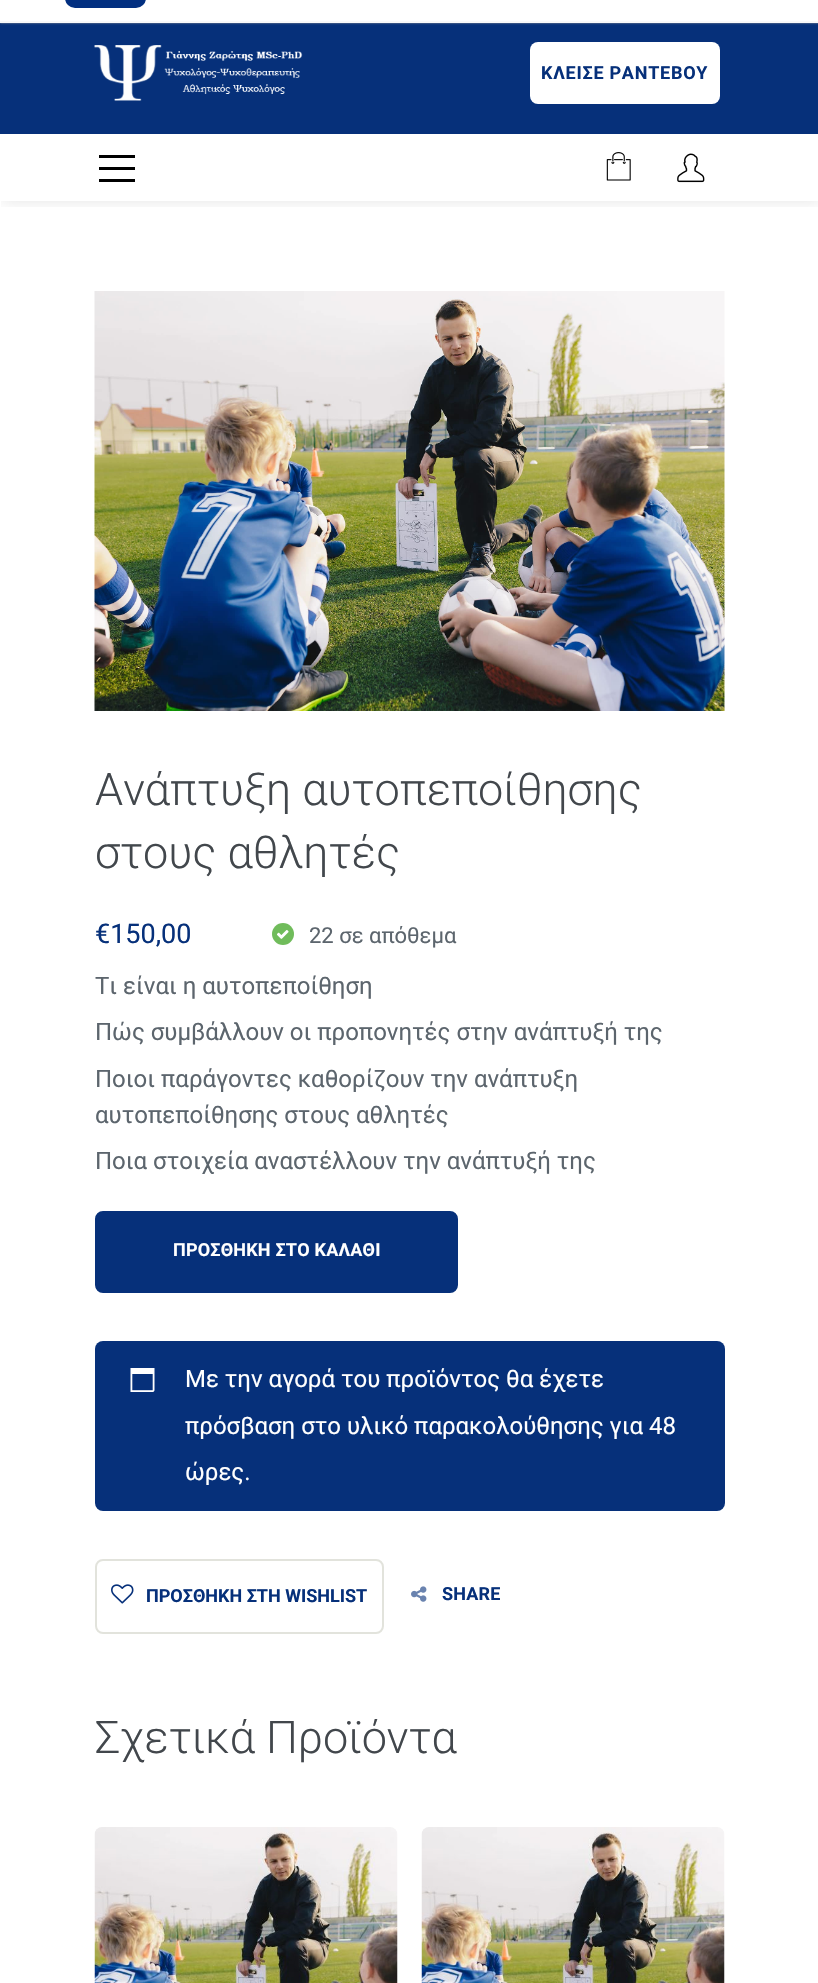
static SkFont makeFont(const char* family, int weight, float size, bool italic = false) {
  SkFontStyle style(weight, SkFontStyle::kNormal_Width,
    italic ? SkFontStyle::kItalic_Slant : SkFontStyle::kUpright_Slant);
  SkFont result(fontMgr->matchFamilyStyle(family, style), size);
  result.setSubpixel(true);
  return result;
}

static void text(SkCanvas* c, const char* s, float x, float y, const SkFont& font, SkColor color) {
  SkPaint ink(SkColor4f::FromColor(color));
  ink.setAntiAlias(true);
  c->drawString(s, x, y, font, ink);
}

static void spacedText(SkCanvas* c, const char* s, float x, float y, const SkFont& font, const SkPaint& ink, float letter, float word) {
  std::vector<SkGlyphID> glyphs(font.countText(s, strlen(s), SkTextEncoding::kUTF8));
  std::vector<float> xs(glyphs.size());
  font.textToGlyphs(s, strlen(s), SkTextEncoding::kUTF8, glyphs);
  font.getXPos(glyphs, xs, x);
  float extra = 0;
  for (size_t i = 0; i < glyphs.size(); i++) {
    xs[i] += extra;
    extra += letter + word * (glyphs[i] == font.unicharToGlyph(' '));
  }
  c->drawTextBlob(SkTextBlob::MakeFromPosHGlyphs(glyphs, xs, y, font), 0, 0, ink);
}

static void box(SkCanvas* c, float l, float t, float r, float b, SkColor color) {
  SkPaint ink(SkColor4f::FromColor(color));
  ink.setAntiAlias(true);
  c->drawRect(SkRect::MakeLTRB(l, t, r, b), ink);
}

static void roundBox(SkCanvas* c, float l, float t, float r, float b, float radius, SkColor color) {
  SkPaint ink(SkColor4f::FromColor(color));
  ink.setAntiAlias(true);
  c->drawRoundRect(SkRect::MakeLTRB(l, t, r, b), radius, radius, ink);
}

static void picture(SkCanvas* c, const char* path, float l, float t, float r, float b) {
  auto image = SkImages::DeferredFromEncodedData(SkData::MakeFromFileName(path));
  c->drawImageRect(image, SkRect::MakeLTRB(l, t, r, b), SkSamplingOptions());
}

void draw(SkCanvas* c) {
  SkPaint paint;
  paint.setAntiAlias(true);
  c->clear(0xffffffff);
  c->save();
  c->clipRect(SkRect::MakeLTRB(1, 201, 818, 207));
  paint.setColor(0x1a000000);
  paint.setMaskFilter(SkMaskFilter::MakeBlur(kNormal_SkBlurStyle, 7.5f));
  c->drawRect(SkRect::MakeLTRB(2, 12, 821, 201), paint);
  paint.setMaskFilter(nullptr);
  c->restore();
  box(c, 0, 23, 818, 134, 0xff06307a);
  paint.setColor(0xff999999);
  paint.setMaskFilter(SkMaskFilter::MakeBlur(kNormal_SkBlurStyle, 1));
  c->drawRect(SkRect::MakeLTRB(0, -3, 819, 23), paint);
  paint.setMaskFilter(nullptr);
  box(c, 0, 0, 818, 21, 0xffffffff);
  box(c, 0, 21, 818, 23, 0xfff9f9f9);
  roundBox(c, 65, -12, 146, 8, 12, 0xff022f80);
  picture(c, "img_01.png", 94, 45, 303, 101);
  roundBox(c, 530, 42, 720, 104, 8, 0xffffffff);
  SkFont face1 = makeFont("Roboto", 700, 18);
  paint.setColor(0xff06307a);
  spacedText(c, "ΚΛΕΙΣΕ ΡΑΝΤΕΒΟΥ", 541, 79, face1, paint, 0.75f, 0);
  box(c, 99, 167, 135, 170, 0xff000000);
  box(c, 99, 155, 135, 158, 0xff000000);
  box(c, 99, 179, 135, 182, 0xff000000);
  picture(c, "img_02.png", 606, 152, 631, 181);
  picture(c, "img_03.png", 677, 153, 705, 183);
  picture(c, "img_04.png", 94, 291, 725, 711);
  SkFont face2 = makeFont("Roboto", 300, 45);
  text(c, "Ανάπτυξη αυτοπεποίθησης", 95, 805, face2, 0xff42474c);
  text(c, "στους αθλητές", 95, 868, face2, 0xff42474c);
  SkFont face3 = makeFont("Roboto", 400, 27);
  text(c, "€150,00", 95, 943, face3, 0xff06307a);
  paint.setColor(0xff70bc5b);
  c->drawCircle(283, 934, 11, paint);
  picture(c, "img_05.png", 277, 930, 289, 939);
  SkFont face4 = makeFont("Roboto", 400, 22);
  text(c, "22 σε απόθεμα", 309, 943, face4, 0xff5c656d);
  SkFont face5 = makeFont("Roboto", 400, 24);
  text(c, "Τι είναι η αυτοπεποίθηση", 95, 994, face5, 0xff5c656d);
  text(c, "Πώς συμβάλλουν οι προπονητές στην ανάπτυξή της", 95, 1040, face5, 0xff5c656d);
  text(c, "Ποιοι παράγοντες καθορίζουν την ανάπτυξη", 95, 1087, face5, 0xff5c656d);
  text(c, "αυτοπεποίθησης στους αθλητές", 95, 1123, face5, 0xff5c656d);
  text(c, "Ποια στοιχεία αναστέλλουν την ανάπτυξή της", 95, 1169, face5, 0xff5c656d);
  paint.setColor(0xff06307a);
  c->drawRoundRect(SkRect::MakeLTRB(96, 1212, 457, 1292), 7, 7, paint);
  paint.setStyle(SkPaint::kStroke_Style);
  paint.setStrokeWidth(2);
  c->drawRoundRect(SkRect::MakeLTRB(96, 1212, 457, 1292), 7, 7, paint);
  paint.setStyle(SkPaint::kFill_Style);
  paint.setColor(0xffffffff);
  spacedText(c, "ΠΡΟΣΘΗΚΗ ΣΤΟ ΚΑΛΑΘΙ", 173, 1256, face1, paint, 0.2f, 0);
  roundBox(c, 95, 1341, 725, 1511, 8, 0xff06307a);
  picture(c, "img_06.png", 130, 1368, 155, 1392);
  text(c, "Με την αγορά του προϊόντος θα έχετε", 185, 1387, face5, 0xffffffff);
  text(c, "πρόσβαση στο υλικό παρακολούθησης για 48", 185, 1434, face5, 0xffffffff);
  text(c, "ώρες.", 185, 1480, face5, 0xffffffff);
  paint.setStyle(SkPaint::kStroke_Style);
  paint.setColor(0xffe2e3dc);
  c->drawRoundRect(SkRect::MakeLTRB(96, 1560, 383, 1633), 7, 7, paint);
  picture(c, "img_07.png", 111, 1584, 134, 1604);
  text(c, "ΠΡΟΣΘΗΚΗ ΣΤΗ WISHLIST", 146, 1602, face1, 0xff06307a);
  picture(c, "img_08.png", 411, 1586, 427, 1602);
  paint.setStyle(SkPaint::kFill_Style);
  paint.setColor(0xff06307a);
  spacedText(c, "SHARE", 442, 1600, face1, paint, 0.2f, 0);
  text(c, "Σχετικά Προϊόντα", 95, 1753, face2, 0xff42474c);
  picture(c, "img_09.png", 94, 1827, 398, 1983);
  picture(c, "img_09.png", 421, 1827, 725, 1983);
}
